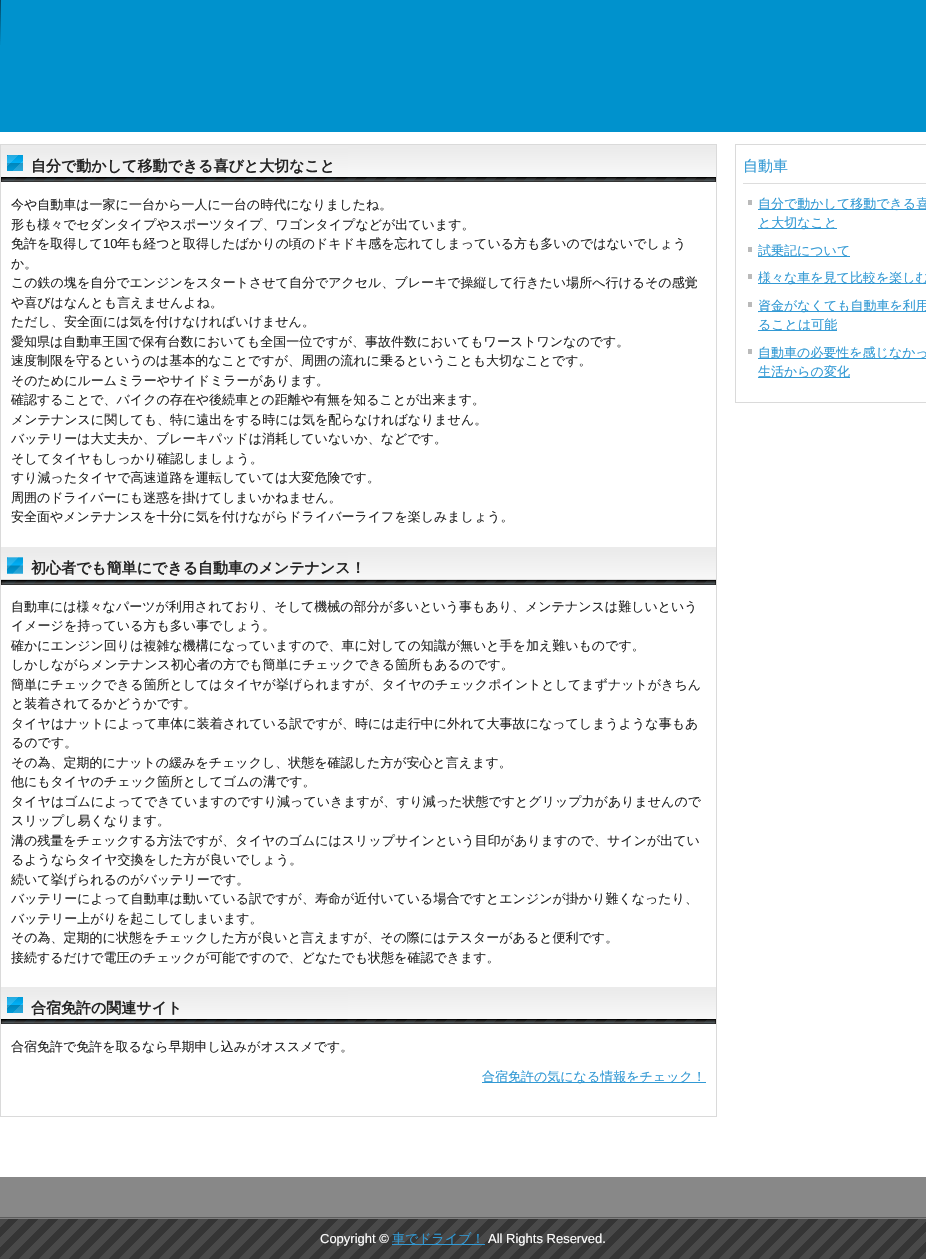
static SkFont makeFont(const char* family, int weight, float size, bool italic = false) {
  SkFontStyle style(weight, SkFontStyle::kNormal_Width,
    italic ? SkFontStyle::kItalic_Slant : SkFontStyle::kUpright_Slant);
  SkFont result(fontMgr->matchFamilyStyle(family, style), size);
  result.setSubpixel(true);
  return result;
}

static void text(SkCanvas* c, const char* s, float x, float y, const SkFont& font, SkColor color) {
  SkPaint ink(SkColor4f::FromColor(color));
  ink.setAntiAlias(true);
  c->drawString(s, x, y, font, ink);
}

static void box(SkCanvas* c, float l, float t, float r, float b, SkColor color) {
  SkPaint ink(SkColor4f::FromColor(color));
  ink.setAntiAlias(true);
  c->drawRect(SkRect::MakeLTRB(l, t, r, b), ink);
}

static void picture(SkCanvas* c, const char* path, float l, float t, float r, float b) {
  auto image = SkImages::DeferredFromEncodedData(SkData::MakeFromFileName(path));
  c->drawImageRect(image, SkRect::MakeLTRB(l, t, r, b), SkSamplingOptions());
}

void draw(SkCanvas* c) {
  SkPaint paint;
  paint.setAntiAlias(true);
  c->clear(0xffffffff);
  box(c, 0, 0, 926, 132, 0xff0092cd);
  picture(c, "img_01.png", 0, 0, 1, 45);
  paint.setStyle(SkPaint::kStroke_Style);
  paint.setStrokeWidth(1);
  paint.setColor(0xffdadada);
  c->drawRect(SkRect::MakeLTRB(0.5f, 144.5f, 716.5f, 1116.5f), paint);
  picture(c, "img_02.png", 1, 145, 716, 182);
  SkFont face1 = makeFont("WenQuanYi Zen Hei", 700, 15);
  text(c, "自分で動かして移動できる喜びと大切なこと", 31, 171, face1, 0xff252525);
  SkFont face2 = makeFont("WenQuanYi Zen Hei", 500, 13);
  text(c, "今や自動車は一家に一台から一人に一台の時代になりましたね。", 11, 209, face2, 0xff252525);
  text(c, "形も様々でセダンタイプやスポーツタイプ、ワゴンタイプなどが出ています。", 11, 229, face2, 0xff252525);
  text(c, "免許を取得して", 11, 248, face2, 0xff252525);
  SkFont face3 = makeFont("Liberation Sans", 400, 13);
  text(c, "10", 103, 248, face3, 0xff252525);
  text(c, "年も経つと取得したばかりの頃のドキドキ感を忘れてしまっている方も多いのではないでしょう", 117, 248, face2, 0xff252525);
  text(c, "か。", 11, 268, face2, 0xff252525);
  text(c, "この鉄の塊を自分でエンジンをスタートさせて自分でアクセル、ブレーキで操縦して行きたい場所へ行けるその感覚", 11, 287, face2, 0xff252525);
  text(c, "や喜びはなんとも言えませんよね。", 11, 307, face2, 0xff252525);
  text(c, "ただし、安全面には気を付けなければいけません。", 11, 326, face2, 0xff252525);
  text(c, "愛知県は自動車王国で保有台数においても全国一位ですが、事故件数においてもワーストワンなのです。", 11, 346, face2, 0xff252525);
  text(c, "速度制限を守るというのは基本的なことですが、周囲の流れに乗るということも大切なことです。", 11, 365, face2, 0xff252525);
  text(c, "そのためにルームミラーやサイドミラーがあります。", 11, 385, face2, 0xff252525);
  text(c, "確認することで、バイクの存在や後続車との距離や有無を知ることが出来ます。", 11, 404, face2, 0xff252525);
  text(c, "メンテナンスに関しても、特に遠出をする時には気を配らなければなりません。", 11, 424, face2, 0xff252525);
  text(c, "バッテリーは大丈夫か、ブレーキパッドは消耗していないか、などです。", 11, 443, face2, 0xff252525);
  text(c, "そしてタイヤもしっかり確認しましょう。", 11, 463, face2, 0xff252525);
  text(c, "すり減ったタイヤで高速道路を運転していては大変危険です。", 11, 482, face2, 0xff252525);
  text(c, "周囲のドライバーにも迷惑を掛けてしまいかねません。", 11, 502, face2, 0xff252525);
  text(c, "安全面やメンテナンスを十分に気を付けながらドライバーライフを楽しみましょう。", 11, 521, face2, 0xff252525);
  picture(c, "img_03.png", 1, 547, 716, 585);
  text(c, "初心者でも簡単にできる自動車のメンテナンス！", 31, 573, face1, 0xff252525);
  text(c, "自動車には様々なパーツが利用されており、そして機械の部分が多いという事もあり、メンテナンスは難しいという", 11, 611, face2, 0xff252525);
  text(c, "イメージを持っている方も多い事でしょう。", 11, 630, face2, 0xff252525);
  text(c, "確かにエンジン回りは複雑な機構になっていますので、車に対しての知識が無いと手を加え難いものです。", 11, 650, face2, 0xff252525);
  text(c, "しかしながらメンテナンス初心者の方でも簡単にチェックできる箇所もあるのです。", 11, 669, face2, 0xff252525);
  text(c, "簡単にチェックできる箇所としてはタイヤが挙げられますが、タイヤのチェックポイントとしてまずナットがきちん", 11, 689, face2, 0xff252525);
  text(c, "と装着されてるかどうかです。", 11, 708, face2, 0xff252525);
  text(c, "タイヤはナットによって車体に装着されている訳ですが、時には走行中に外れて大事故になってしまうような事もあ", 11, 728, face2, 0xff252525);
  text(c, "るのです。", 11, 747, face2, 0xff252525);
  text(c, "その為、定期的にナットの緩みをチェックし、状態を確認した方が安心と言えます。", 11, 767, face2, 0xff252525);
  text(c, "他にもタイヤのチェック箇所としてゴムの溝です。", 11, 786, face2, 0xff252525);
  text(c, "タイヤはゴムによってできていますのですり減っていきますが、すり減った状態ですとグリップ力がありませんので", 11, 806, face2, 0xff252525);
  text(c, "スリップし易くなります。", 11, 825, face2, 0xff252525);
  text(c, "溝の残量をチェックする方法ですが、タイヤのゴムにはスリップサインという目印がありますので、サインが出てい", 11, 845, face2, 0xff252525);
  text(c, "るようならタイヤ交換をした方が良いでしょう。", 11, 864, face2, 0xff252525);
  text(c, "続いて挙げられるのがバッテリーです。", 11, 884, face2, 0xff252525);
  text(c, "バッテリーによって自動車は動いている訳ですが、寿命が近付いている場合ですとエンジンが掛かり難くなったり、", 11, 903, face2, 0xff252525);
  text(c, "バッテリー上がりを起こしてしまいます。", 11, 923, face2, 0xff252525);
  text(c, "その為、定期的に状態をチェックした方が良いと言えますが、その際にはテスターがあると便利です。", 11, 942, face2, 0xff252525);
  text(c, "接続するだけで電圧のチェックが可能ですので、どなたでも状態を確認できます。", 11, 962, face2, 0xff252525);
  picture(c, "img_02.png", 1, 987, 716, 1024);
  text(c, "合宿免許の関連サイト", 31, 1013, face1, 0xff252525);
  text(c, "合宿免許で免許を取るなら早期申し込みがオススメです。", 11, 1051, face2, 0xff252525);
  box(c, 482, 1082, 706, 1083, 0xff3299d4);
  text(c, "合宿免許の気になる情報をチェック！", 482, 1081, face2, 0xff3299d4);
  c->drawRect(SkRect::MakeLTRB(735.5f, 144.5f, 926.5f, 402.5f), paint);
  box(c, 743, 183, 926, 184, 0xffdddddd);
  SkFont face4 = makeFont("WenQuanYi Zen Hei", 500, 15);
  text(c, "自動車", 743, 171, face4, 0xff3299d4);
  box(c, 748, 200, 752, 205, 0xffbababa);
  box(c, 758, 209, 926, 210, 0xff3299d4);
  text(c, "自分で動かして移動できる喜", 758, 208, face2, 0xff3299d4);
  box(c, 758, 228, 837, 229, 0xff3299d4);
  text(c, "と大切なこと", 758, 227, face2, 0xff3299d4);
  box(c, 748, 247, 752, 252, 0xffbababa);
  box(c, 758, 256, 850, 257, 0xff3299d4);
  text(c, "試乗記について", 758, 255, face2, 0xff3299d4);
  box(c, 748, 274, 752, 279, 0xffbababa);
  box(c, 758, 283, 926, 284, 0xff3299d4);
  text(c, "様々な車を見て比較を楽しむ", 758, 282, face2, 0xff3299d4);
  box(c, 748, 302, 752, 307, 0xffbababa);
  box(c, 758, 311, 926, 312, 0xff3299d4);
  text(c, "資金がなくても自動車を利用", 758, 310, face2, 0xff3299d4);
  box(c, 758, 330, 837, 331, 0xff3299d4);
  text(c, "ることは可能", 758, 329, face2, 0xff3299d4);
  box(c, 748, 349, 752, 354, 0xffbababa);
  box(c, 758, 358, 926, 359, 0xff3299d4);
  text(c, "自動車の必要性を感じなかっ", 758, 357, face2, 0xff3299d4);
  box(c, 758, 377, 850, 378, 0xff3299d4);
  text(c, "生活からの変化", 758, 376, face2, 0xff3299d4);
  box(c, 0, 1177, 926, 1217, 0xff888888);
  box(c, 0, 1217, 926, 1218, 0xff5d5d5d);
  picture(c, "img_04.png", 0, 1219, 926, 1259);
  box(c, 0, 1218, 926, 1219, 0xff7e7e7e);
  text(c, "Copyright ©", 320, 1243, face3, 0xffffffff);
  box(c, 392, 1244, 485, 1245, 0xff3299d4);
  text(c, "車でドライブ！", 392, 1243, face2, 0xff3299d4);
  text(c, "All Rights Reserved.", 488, 1243, face3, 0xffffffff);
}
